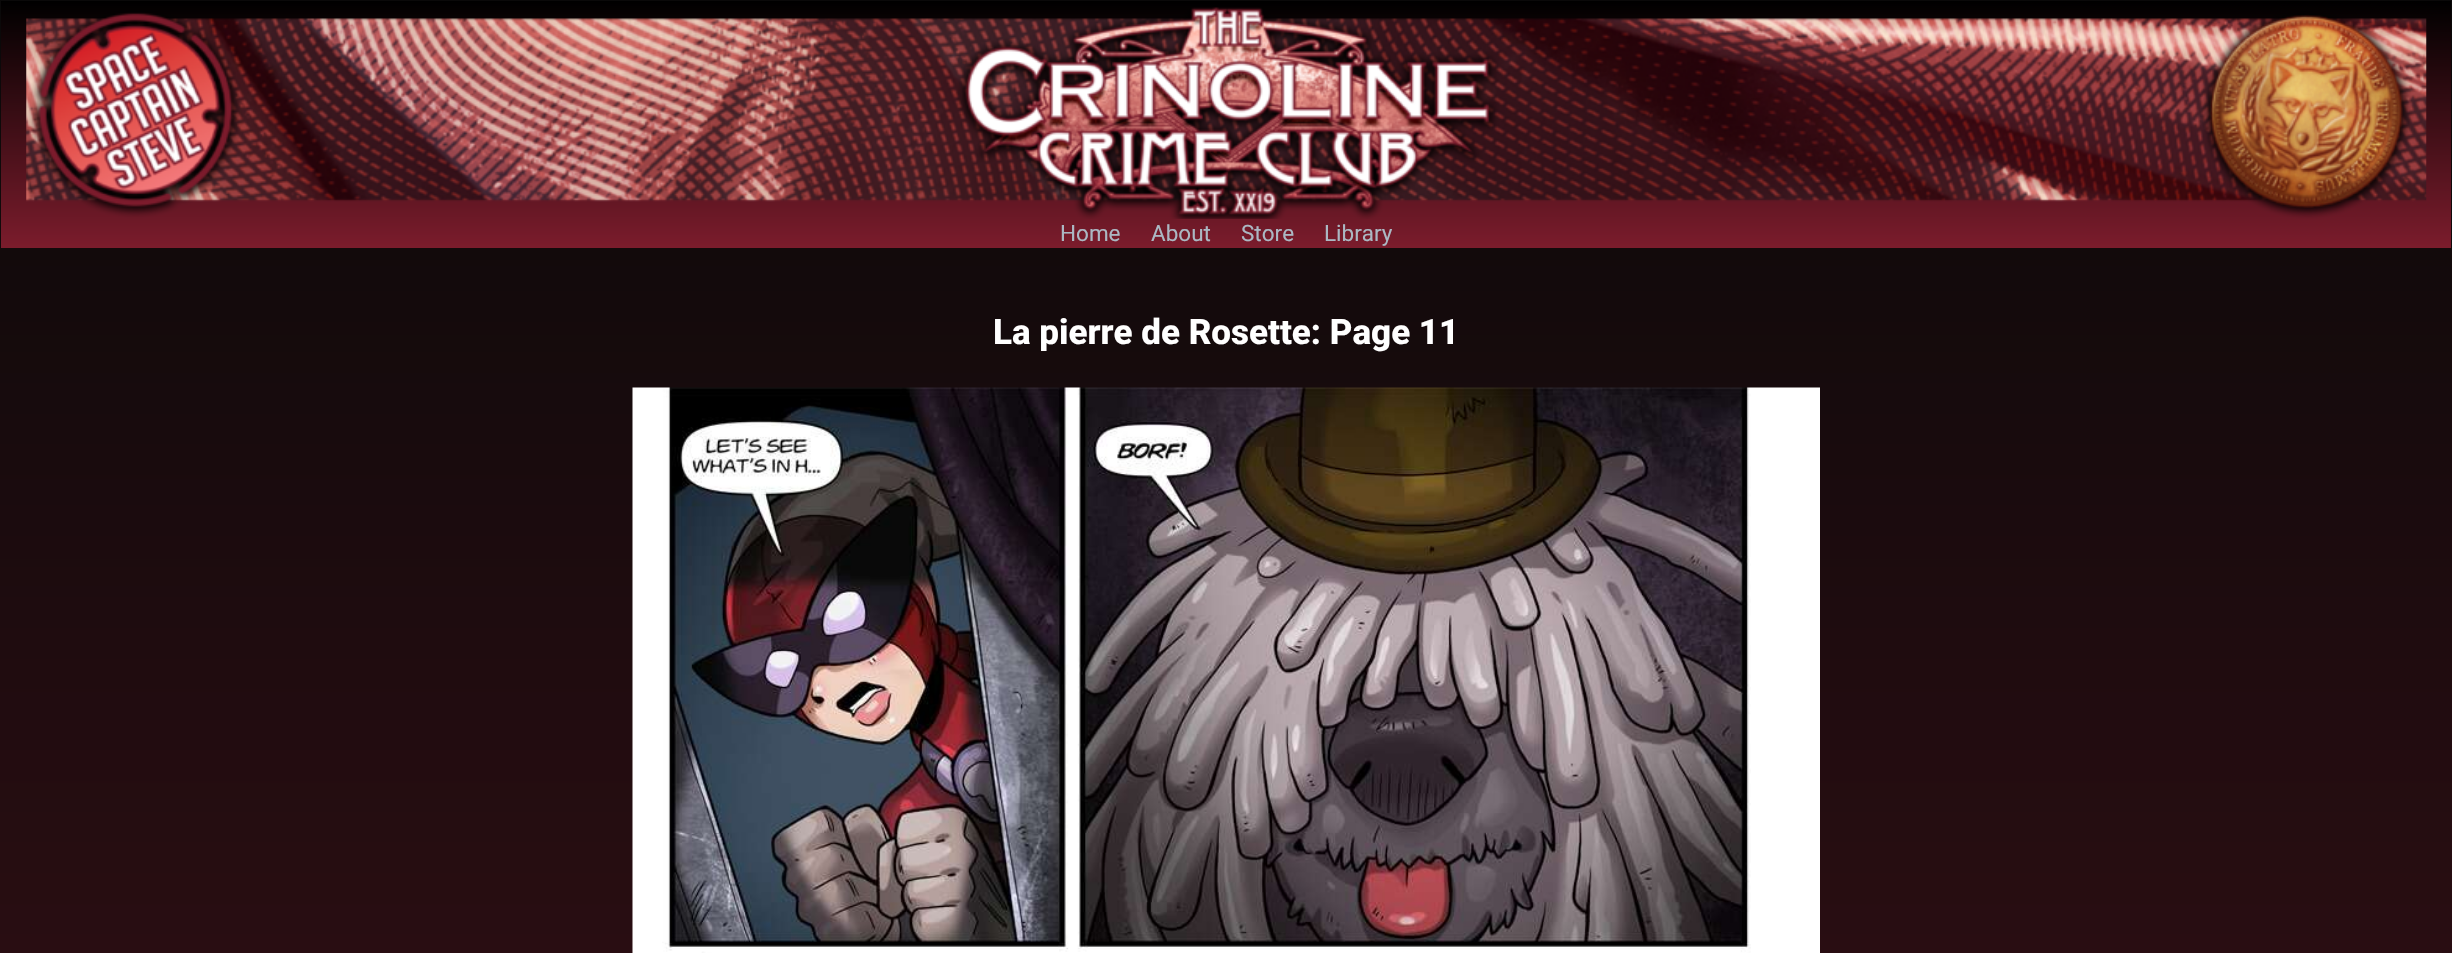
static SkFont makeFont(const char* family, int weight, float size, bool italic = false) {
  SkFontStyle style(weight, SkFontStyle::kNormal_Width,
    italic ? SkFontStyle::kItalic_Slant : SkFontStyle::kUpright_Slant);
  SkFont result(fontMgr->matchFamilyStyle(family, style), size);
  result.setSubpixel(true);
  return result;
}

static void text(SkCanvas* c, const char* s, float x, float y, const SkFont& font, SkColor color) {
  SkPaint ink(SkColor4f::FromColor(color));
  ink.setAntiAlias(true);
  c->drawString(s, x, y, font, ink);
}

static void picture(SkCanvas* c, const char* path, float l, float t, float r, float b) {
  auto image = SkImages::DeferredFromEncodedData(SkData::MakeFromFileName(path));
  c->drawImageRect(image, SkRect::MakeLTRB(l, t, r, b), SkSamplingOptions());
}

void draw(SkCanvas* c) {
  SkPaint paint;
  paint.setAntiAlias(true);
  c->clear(0xffffffff);
  {
    const SkColor colors[] = {0xff0a0909, 0xff53131e};
    const float stops[] = {0, 1};
    const SkPoint ends[] = {{1226, 0}, {1226, 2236}};
    paint.setShader(SkGradientShader::MakeLinear(ends, colors, stops, 2, SkTileMode::kClamp));
    paint.setAlpha(255);
  }
  c->drawRect(SkRect::MakeLTRB(0, 0, 2452, 953), paint);
  {
    const SkColor colors[] = {0xff7b1c2c, 0xff000000};
    const float stops[] = {0, 1};
    const SkPoint ends[] = {{1226, 248}, {1226, 1.2f}};
    paint.setShader(SkGradientShader::MakeLinear(ends, colors, stops, 2, SkTileMode::kClamp));
    paint.setAlpha(255);
  }
  c->drawRect(SkRect::MakeLTRB(1, 1, 2451, 248), paint);
  picture(c, "img_01.png", 26, 7, 2427, 219);
  SkFont face1 = makeFont("Roboto", 400, 22.5f);
  text(c, "Home", 1060, 241, face1, 0xffabb8c3);
  text(c, "About", 1151, 241, face1, 0xffabb8c3);
  text(c, "Store", 1241, 241, face1, 0xffabb8c3);
  text(c, "Library", 1324, 241, face1, 0xffabb8c3);
  SkFont face2 = makeFont("Roboto", 800, 35);
  text(c, "La pierre de Rosette: Page 11", 993, 344, face2, 0xffffffff);
  picture(c, "img_02.png", 632, 387, 1820, 953);
}
